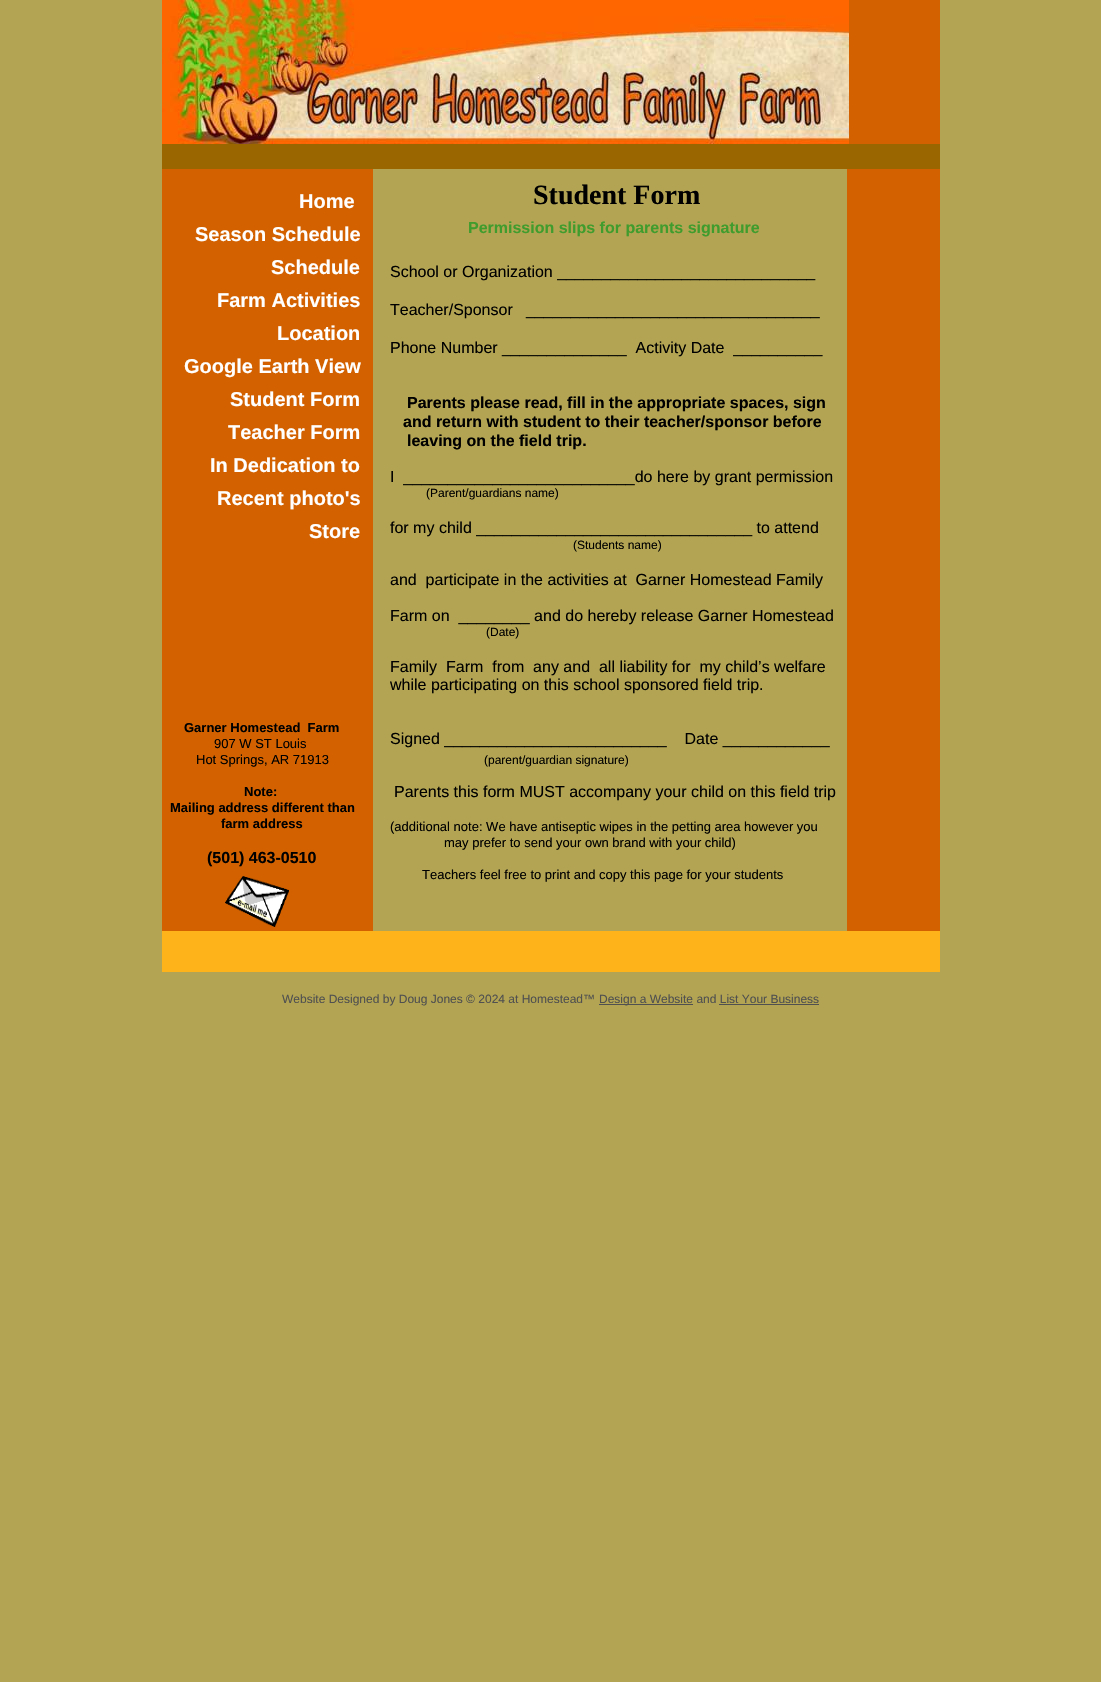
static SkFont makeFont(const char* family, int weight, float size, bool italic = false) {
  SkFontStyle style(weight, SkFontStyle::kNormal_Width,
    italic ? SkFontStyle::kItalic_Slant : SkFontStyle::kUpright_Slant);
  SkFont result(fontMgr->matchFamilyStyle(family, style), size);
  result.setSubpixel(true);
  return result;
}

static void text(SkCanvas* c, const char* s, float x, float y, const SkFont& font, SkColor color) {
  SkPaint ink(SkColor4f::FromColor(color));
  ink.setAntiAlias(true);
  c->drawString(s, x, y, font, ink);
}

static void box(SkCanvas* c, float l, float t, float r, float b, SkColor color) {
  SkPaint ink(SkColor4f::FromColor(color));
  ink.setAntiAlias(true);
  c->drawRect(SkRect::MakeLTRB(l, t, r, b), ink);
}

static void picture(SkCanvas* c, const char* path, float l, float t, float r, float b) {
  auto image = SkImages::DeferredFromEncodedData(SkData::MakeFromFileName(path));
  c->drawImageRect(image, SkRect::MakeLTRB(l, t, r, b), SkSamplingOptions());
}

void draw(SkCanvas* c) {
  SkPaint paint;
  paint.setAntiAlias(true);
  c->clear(0xffb2a452);
  box(c, 847, 0, 940, 931, 0xffd36100);
  picture(c, "img_01.png", 162, 0, 849, 144);
  box(c, 162, 144, 940, 169, 0xff996600);
  box(c, 162, 169, 373, 931, 0xffd36100);
  SkFont face1 = makeFont("Liberation Serif", 700, 28);
  text(c, "Student Form", 533, 204, face1, 0xff000000);
  SkFont face2 = makeFont("Liberation Sans", 700, 20);
  text(c, "Home", 299, 208, face2, 0xffffffff);
  text(c, "Season Schedule", 195, 241, face2, 0xffffffff);
  text(c, "Schedule", 271, 274, face2, 0xffffffff);
  text(c, "Farm Activities", 217, 307, face2, 0xffffffff);
  text(c, "Location", 277, 340, face2, 0xffffffff);
  text(c, "Google Earth View", 184, 373, face2, 0xffffffff);
  text(c, "Student Form", 230, 406, face2, 0xffffffff);
  text(c, "Teacher Form", 228, 439, face2, 0xffffffff);
  text(c, "In Dedication to", 210, 472, face2, 0xffffffff);
  text(c, "Recent photo's", 217, 505, face2, 0xffffffff);
  text(c, "Store", 309, 538, face2, 0xffffffff);
  SkFont face3 = makeFont("Liberation Sans", 700, 16);
  text(c, "Permission slips for parents signature", 468, 233, face3, 0xff3f9c2d);
  SkFont face4 = makeFont("Liberation Sans", 700, 13);
  text(c, "Garner Homestead  Farm", 184, 732, face4, 0xff000000);
  SkFont face5 = makeFont("Liberation Sans", 400, 13);
  text(c, "907 W ST Louis", 214, 748, face5, 0xff000000);
  text(c, "Hot Springs, AR 71913", 196, 764, face5, 0xff000000);
  text(c, "Note:", 244, 796, face4, 0xff000000);
  text(c, "Mailing address different than", 170, 812, face4, 0xff000000);
  text(c, "farm address", 221, 828, face4, 0xff000000);
  text(c, "(501) 463-0510", 207, 863, face3, 0xff000000);
  SkFont face6 = makeFont("Liberation Sans", 400, 16);
  text(c, "School or Organization _____________________________", 390, 277, face6, 0xff000000);
  text(c, "Teacher/Sponsor   _________________________________", 390, 315, face6, 0xff000000);
  text(c, "Phone Number ______________  Activity Date  __________", 390, 353, face6, 0xff000000);
  text(c, "Parents please read, fill in the appropriate spaces, sign", 407, 408, face3, 0xff000000);
  text(c, "and return with student to their teacher/sponsor before", 403, 427, face3, 0xff000000);
  text(c, "leaving on the field trip.", 407, 446, face3, 0xff000000);
  text(c, "I  __________________________do here by grant permission", 390, 482, face6, 0xff000000);
  SkFont face7 = makeFont("Liberation Sans", 400, 12);
  text(c, "(Parent/guardians name)", 426, 497, face7, 0xff000000);
  text(c, "for my child _______________________________ to attend", 390, 533, face6, 0xff000000);
  text(c, "(Students name)", 573, 549, face7, 0xff000000);
  text(c, "and  participate in the activities at  Garner Homestead Family", 390, 585, face6, 0xff000000);
  text(c, "Farm on  ________ and do hereby release Garner Homestead", 390, 621, face6, 0xff000000);
  text(c, "(Date)", 486, 636, face7, 0xff000000);
  text(c, "Family  Farm  from  any and  all liability for  my child’s welfare", 390, 672, face6, 0xff000000);
  text(c, "while participating on this school sponsored field trip.", 390, 690, face6, 0xff000000);
  text(c, "Signed _________________________    Date ____________", 390, 744, face6, 0xff000000);
  text(c, "(parent/guardian signature)", 484, 764, face7, 0xff000000);
  text(c, "Parents this form MUST accompany your child on this field trip", 394, 797, face6, 0xff000000);
  text(c, "(additional note: We have antiseptic wipes in the petting area however you", 390, 831, face5, 0xff000000);
  text(c, "may prefer to send your own brand with your child)", 444, 847, face5, 0xff000000);
  text(c, "Teachers feel free to print and copy this page for your students", 422, 879, face5, 0xff000000);
  picture(c, "img_02.png", 225, 876, 289, 927);
  box(c, 162, 931, 940, 972, 0xfffeb31a);
  text(c, "Website Designed by Doug Jones © 2024 at Homestead™", 282, 1003, face7, 0xff505050);
  box(c, 599, 1004, 693, 1005, 0xff505050);
  text(c, "Design a Website and List Your Business", 599, 1003, face7, 0xff505050);
  box(c, 719, 1004, 819, 1005, 0xff505050);
}
